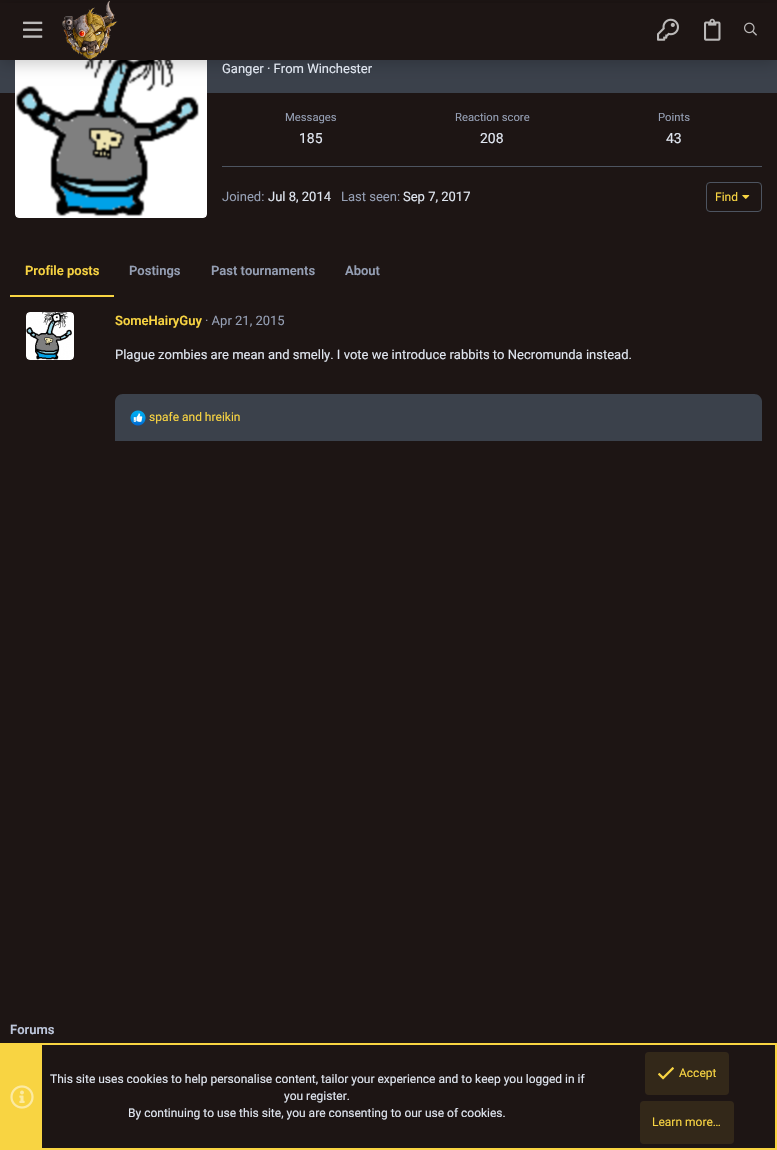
static SkFont makeFont(const char* family, int weight, float size, bool italic = false) {
  SkFontStyle style(weight, SkFontStyle::kNormal_Width,
    italic ? SkFontStyle::kItalic_Slant : SkFontStyle::kUpright_Slant);
  SkFont result(fontMgr->matchFamilyStyle(family, style), size);
  result.setSubpixel(true);
  return result;
}

static void text(SkCanvas* c, const char* s, float x, float y, const SkFont& font, SkColor color) {
  SkPaint ink(SkColor4f::FromColor(color));
  ink.setAntiAlias(true);
  c->drawString(s, x, y, font, ink);
}

static void box(SkCanvas* c, float l, float t, float r, float b, SkColor color) {
  SkPaint ink(SkColor4f::FromColor(color));
  ink.setAntiAlias(true);
  c->drawRect(SkRect::MakeLTRB(l, t, r, b), ink);
}

static void roundBox(SkCanvas* c, float l, float t, float r, float b, float radius, SkColor color) {
  SkPaint ink(SkColor4f::FromColor(color));
  ink.setAntiAlias(true);
  c->drawRoundRect(SkRect::MakeLTRB(l, t, r, b), radius, radius, ink);
}

static void picture(SkCanvas* c, const char* path, float l, float t, float r, float b) {
  auto image = SkImages::DeferredFromEncodedData(SkData::MakeFromFileName(path));
  c->drawImageRect(image, SkRect::MakeLTRB(l, t, r, b), SkSamplingOptions());
}

void draw(SkCanvas* c) {
  SkPaint paint;
  paint.setAntiAlias(true);
  c->clear(0xff1d1514);
  box(c, 0, 60, 777, 93, 0xff3b414b);
  picture(c, "img_06.png", 15, 60, 207, 218);
  paint.setColor(0x33000000);
  paint.setMaskFilter(SkMaskFilter::MakeBlur(kNormal_SkBlurStyle, 7.5f));
  c->drawRect(SkRect::MakeLTRB(0, 4, 777, 64), paint);
  paint.setMaskFilter(nullptr);
  box(c, 0, 3, 777, 60, 0xff1d1514);
  picture(c, "img_01.png", 23, 21, 43, 38);
  picture(c, "img_02.png", 62, 0, 118, 60);
  picture(c, "img_03.png", 657, 18, 679, 41);
  picture(c, "img_04.png", 704, 18, 721, 41);
  picture(c, "img_05.png", 744, 22, 757, 36);
  SkFont face1 = makeFont("Roboto", 400, 13);
  text(c, "Ganger · From Winchester", 222, 73, face1, 0xffe0e6f0);
  SkFont face2 = makeFont("Roboto", 400, 11.25f);
  text(c, "Messages", 285, 121, face2, 0xff959fb4);
  SkFont face3 = makeFont("Roboto", 400, 14);
  text(c, "185", 299, 143, face3, 0xffe0e6f0);
  text(c, "Reaction score", 455, 121, face2, 0xff959fb4);
  text(c, "208", 480, 143, face3, 0xffe0e6f0);
  text(c, "Points", 658, 121, face2, 0xff959fb4);
  text(c, "43", 666, 143, face3, 0xffe0e6f0);
  box(c, 222, 166, 762, 167, 0xff4d5460);
  text(c, "Joined:", 222, 201, face1, 0xff959fb4);
  text(c, "Jul 8, 2014", 268, 201, face1, 0xffe0e6f0);
  text(c, "Last seen:", 341, 201, face1, 0xff959fb4);
  text(c, "Sep 7, 2017", 403, 201, face1, 0xffe0e6f0);
  paint.setStyle(SkPaint::kStroke_Style);
  paint.setStrokeWidth(1);
  paint.setColor(0xff4d5460);
  c->drawRoundRect(SkRect::MakeLTRB(706.5f, 182.5f, 761.5f, 211.5f), 3.5f, 3.5f, paint);
  SkFont face4 = makeFont("Roboto", 400, 12);
  text(c, "Find", 715, 201, face4, 0xfff8d442);
  picture(c, "img_07.png", 742, 195, 750, 199);
  box(c, 10, 295, 114, 297, 0xfff8d442);
  SkFont face5 = makeFont("Roboto", 600, 13);
  text(c, "Profile posts", 25, 275, face5, 0xfff8d442);
  text(c, "Postings", 129, 275, face5, 0xff959fb4);
  text(c, "Past tournaments", 211, 275, face5, 0xff959fb4);
  text(c, "About", 345, 275, face5, 0xff959fb4);
  picture(c, "img_08.png", 26, 312, 74, 360);
  text(c, "SomeHairyGuy", 115, 325, face5, 0xfff8d442);
  text(c, "· Apr 21, 2015", 205, 325, face1, 0xff959fb4);
  text(c, "Plague zombies are mean and smelly. I vote we introduce rabbits to Necromunda instead.", 115, 359, face1, 0xffe0e6f0);
  paint.setStyle(SkPaint::kFill_Style);
  paint.setColor(0xff3b414b);
  c->drawPath(SkPathBuilder().moveTo(123, 394).lineTo(754, 394).cubicTo(758.5f, 394, 762, 397.5f, 762, 402).lineTo(762, 441).lineTo(115, 441).lineTo(115, 402).cubicTo(115, 397.5f, 118.5f, 394, 123, 394).close().detach(), paint);
  picture(c, "img_09.png", 130, 410, 146, 426);
  text(c, "spafe and hreikin", 149, 421, face4, 0xfff8d442);
  text(c, "Forums", 10, 1034, face5, 0xffbdc6db);
  paint.setStyle(SkPaint::kStroke_Style);
  paint.setStrokeWidth(2);
  paint.setColor(0xfff8d442);
  c->drawRect(SkRect::MakeLTRB(1, 1044, 776, 1149), paint);
  box(c, 2, 1045, 42, 1148, 0xfff8d442);
  picture(c, "img_10.png", 10, 1085, 34, 1109);
  text(c, "This site uses cookies to help personalise content, tailor your experience and to keep you logged in if", 50, 1083, face4, 0xffe0e6f0);
  text(c, "you register.", 284, 1100, face4, 0xffe0e6f0);
  text(c, "By continuing to use this site, you are consenting to our use of cookies.", 128, 1117, face4, 0xffe0e6f0);
  roundBox(c, 645, 1052, 729, 1095, 4, 0xff332819);
  picture(c, "img_11.png", 658, 1067, 674, 1080);
  text(c, "Accept", 679, 1077, face4, 0xfff8d442);
  roundBox(c, 640, 1101, 734, 1144, 4, 0xff332819);
  text(c, "Learn more…", 652, 1126, face4, 0xfff8d442);
}
